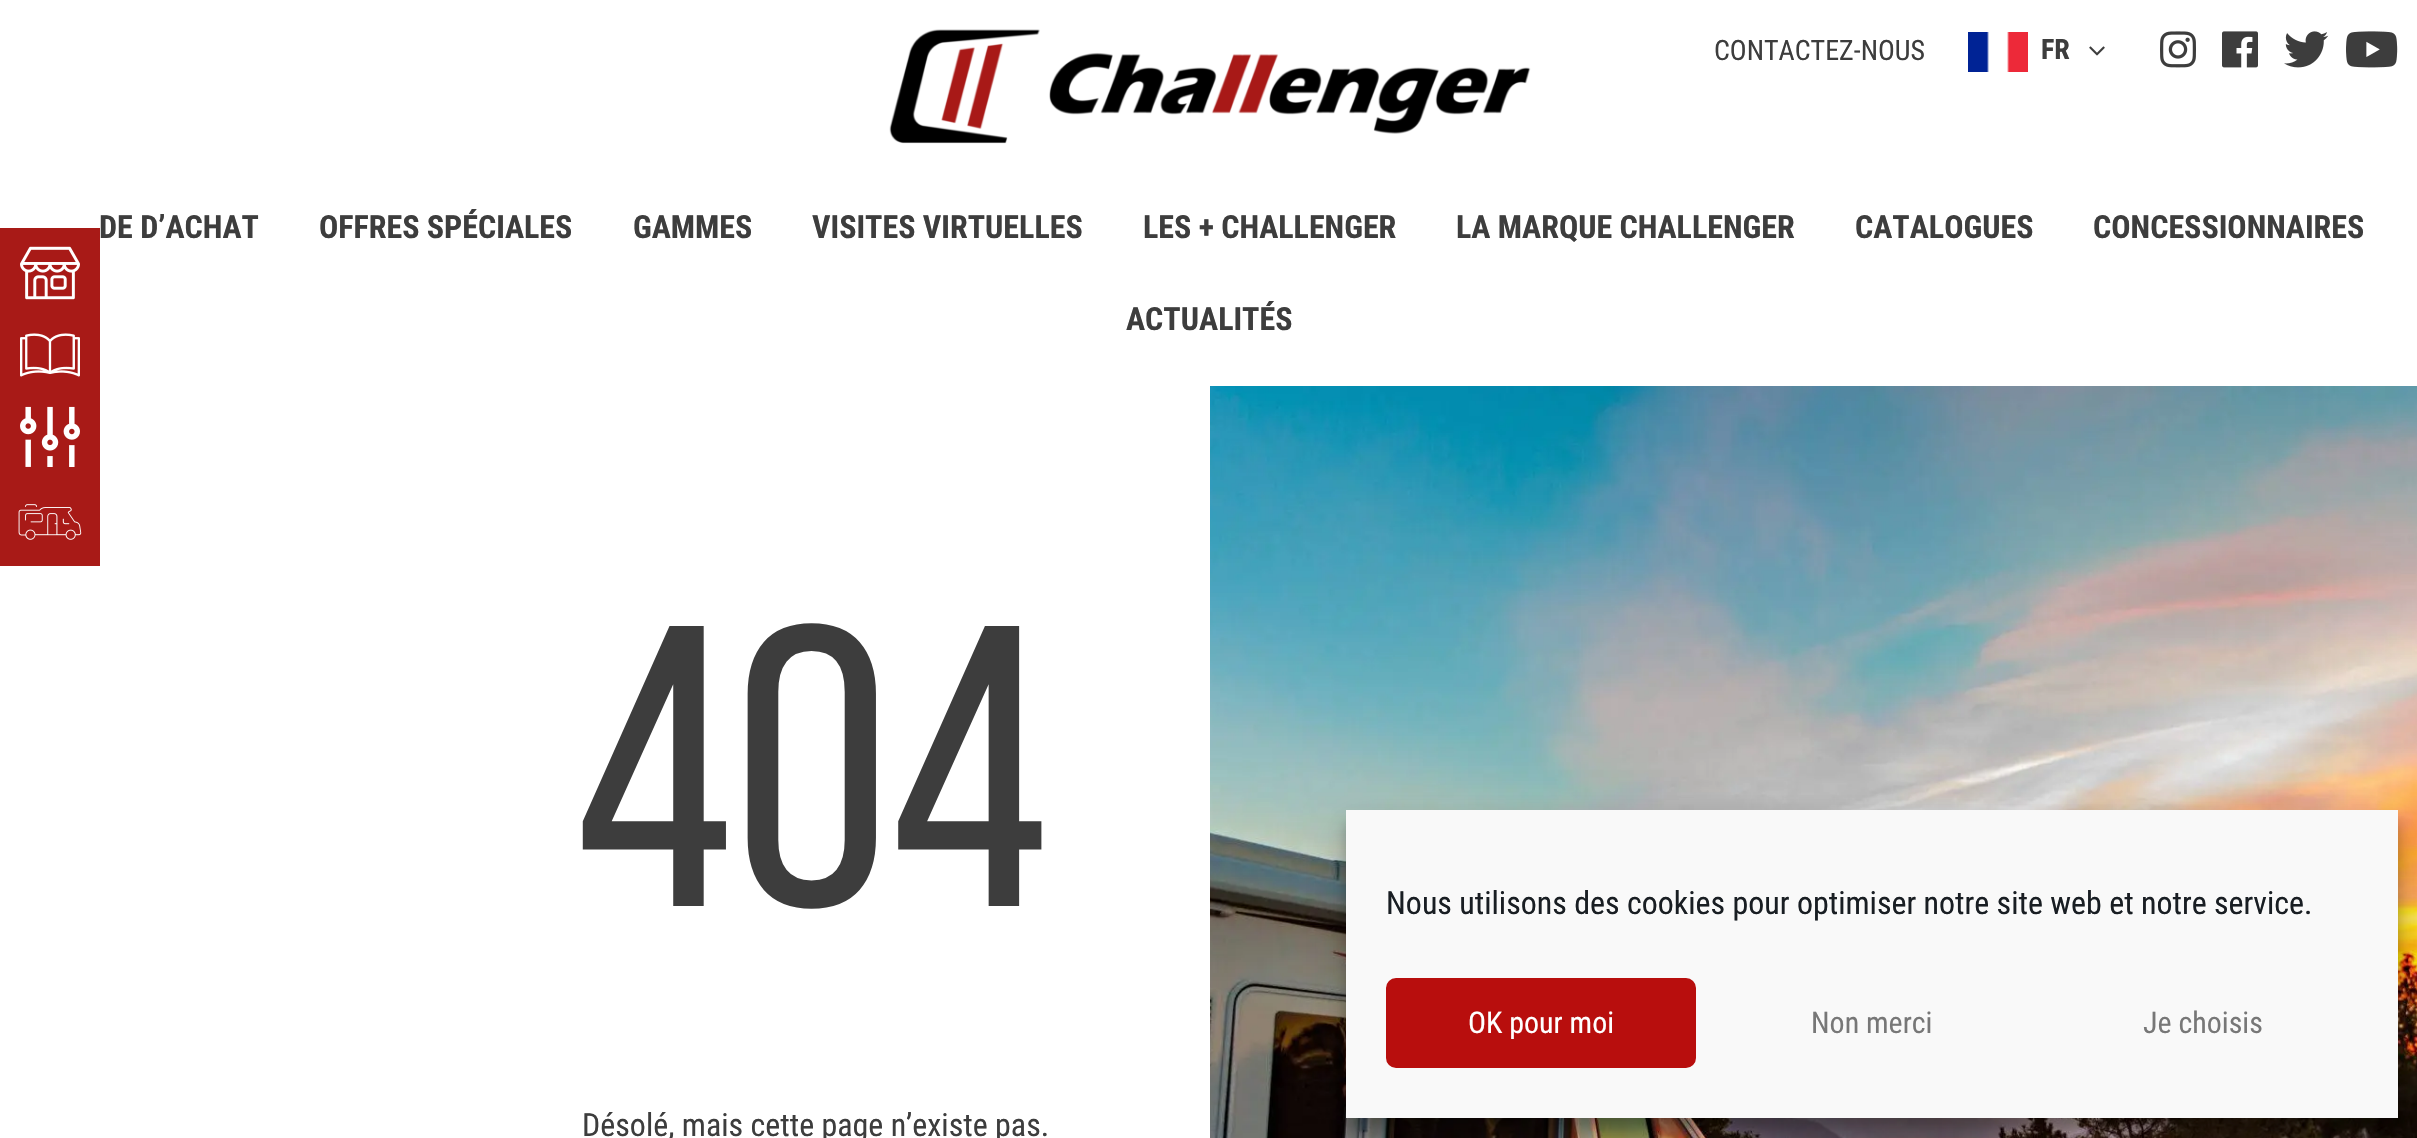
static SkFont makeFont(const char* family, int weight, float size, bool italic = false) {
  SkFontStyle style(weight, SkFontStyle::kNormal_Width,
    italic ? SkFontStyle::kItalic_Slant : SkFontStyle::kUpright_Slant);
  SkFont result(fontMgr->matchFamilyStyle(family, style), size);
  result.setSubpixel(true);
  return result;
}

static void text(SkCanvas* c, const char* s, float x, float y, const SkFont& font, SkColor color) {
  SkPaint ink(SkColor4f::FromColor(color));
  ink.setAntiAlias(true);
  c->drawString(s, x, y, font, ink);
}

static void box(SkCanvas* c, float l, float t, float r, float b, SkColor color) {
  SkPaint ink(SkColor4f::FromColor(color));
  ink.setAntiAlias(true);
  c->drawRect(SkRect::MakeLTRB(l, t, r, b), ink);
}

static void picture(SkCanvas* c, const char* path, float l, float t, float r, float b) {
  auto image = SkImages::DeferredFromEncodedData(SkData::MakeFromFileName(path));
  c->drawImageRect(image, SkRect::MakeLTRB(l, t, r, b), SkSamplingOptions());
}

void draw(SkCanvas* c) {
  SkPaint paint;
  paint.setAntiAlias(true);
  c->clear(0xffffffff);
  picture(c, "img_01.png", 889, 29, 1531, 144);
  SkFont face1 = makeFont("Roboto Condensed", 400, 28);
  text(c, "CONTACTEZ-NOUS", 1714, 60, face1, 0xff3d3d3d);
  picture(c, "img_02.png", 1968, 32, 2028, 72);
  SkFont face2 = makeFont("Roboto Condensed", 700, 28);
  text(c, "FR", 2041, 59, face2, 0xff3d3d3d);
  picture(c, "img_03.png", 2089, 46, 2105, 56);
  picture(c, "img_04.png", 2160, 31, 2196, 68);
  picture(c, "img_05.png", 2222, 31, 2258, 68);
  picture(c, "img_06.png", 2284, 31, 2329, 68);
  picture(c, "img_07.png", 2346, 31, 2398, 68);
  SkFont face3 = makeFont("Roboto Condensed", 700, 32);
  text(c, "DE D’ACHAT", 99, 238, face3, 0xff3d3d3d);
  text(c, "OFFRES SPÉCIALES", 319, 238, face3, 0xff3d3d3d);
  text(c, "GAMMES", 633, 238, face3, 0xff3d3d3d);
  text(c, "VISITES VIRTUELLES", 812, 238, face3, 0xff3d3d3d);
  text(c, "LES + CHALLENGER", 1143, 238, face3, 0xff3d3d3d);
  text(c, "LA MARQUE CHALLENGER", 1456, 238, face3, 0xff3d3d3d);
  text(c, "CATALOGUES", 1855, 238, face3, 0xff3d3d3d);
  text(c, "CONCESSIONNAIRES", 2093, 238, face3, 0xff3d3d3d);
  text(c, "ACTUALITÉS", 1126, 330, face3, 0xff3d3d3d);
  box(c, 0, 228, 100, 566, 0xffa81a17);
  picture(c, "img_08.png", 20, 246, 80, 300);
  picture(c, "img_09.png", 20, 333, 80, 377);
  picture(c, "img_10.png", 20, 406, 80, 467);
  picture(c, "img_11.png", 18, 504, 82, 540);
  SkFont face4 = makeFont("Bebas Neue", 400, 400);
  text(c, "404", 574, 906, face4, 0xff3d3d3d);
  SkFont face5 = makeFont("Roboto Condensed", 400, 32);
  text(c, "Désolé, mais cette page n’existe pas.", 582, 1136, face5, 0xff3d3d3d);
  picture(c, "img_12.png", 1210, 386, 2417, 1138);
  paint.setColor(0x3b000000);
  paint.setMaskFilter(SkMaskFilter::MakeBlur(kNormal_SkBlurStyle, 6));
  c->drawRect(SkRect::MakeLTRB(1346, 822, 2398, 1130), paint);
  paint.setMaskFilter(nullptr);
  paint.setColor(0x30000000);
  paint.setMaskFilter(SkMaskFilter::MakeBlur(kNormal_SkBlurStyle, 20));
  c->drawRect(SkRect::MakeLTRB(1346, 830, 2398, 1138), paint);
  paint.setMaskFilter(nullptr);
  box(c, 1346, 810, 2398, 1118, 0xfff9f9f9);
  text(c, "Nous utilisons des cookies pour optimiser notre site web et notre service.", 1386, 914, face5, 0xff191e23);
  paint.setColor(0xffb80e0d);
  c->drawRoundRect(SkRect::MakeLTRB(1387, 979, 1695, 1067), 9, 9, paint);
  paint.setStyle(SkPaint::kStroke_Style);
  paint.setStrokeWidth(2);
  c->drawRoundRect(SkRect::MakeLTRB(1387, 979, 1695, 1067), 9, 9, paint);
  SkFont face6 = makeFont("Roboto Condensed", 400, 30);
  text(c, "OK pour moi", 1468, 1033, face6, 0xffffffff);
  text(c, "Non merci", 1811, 1033, face6, 0xff777777);
  text(c, "Je choisis", 2143, 1033, face6, 0xff777777);
}
